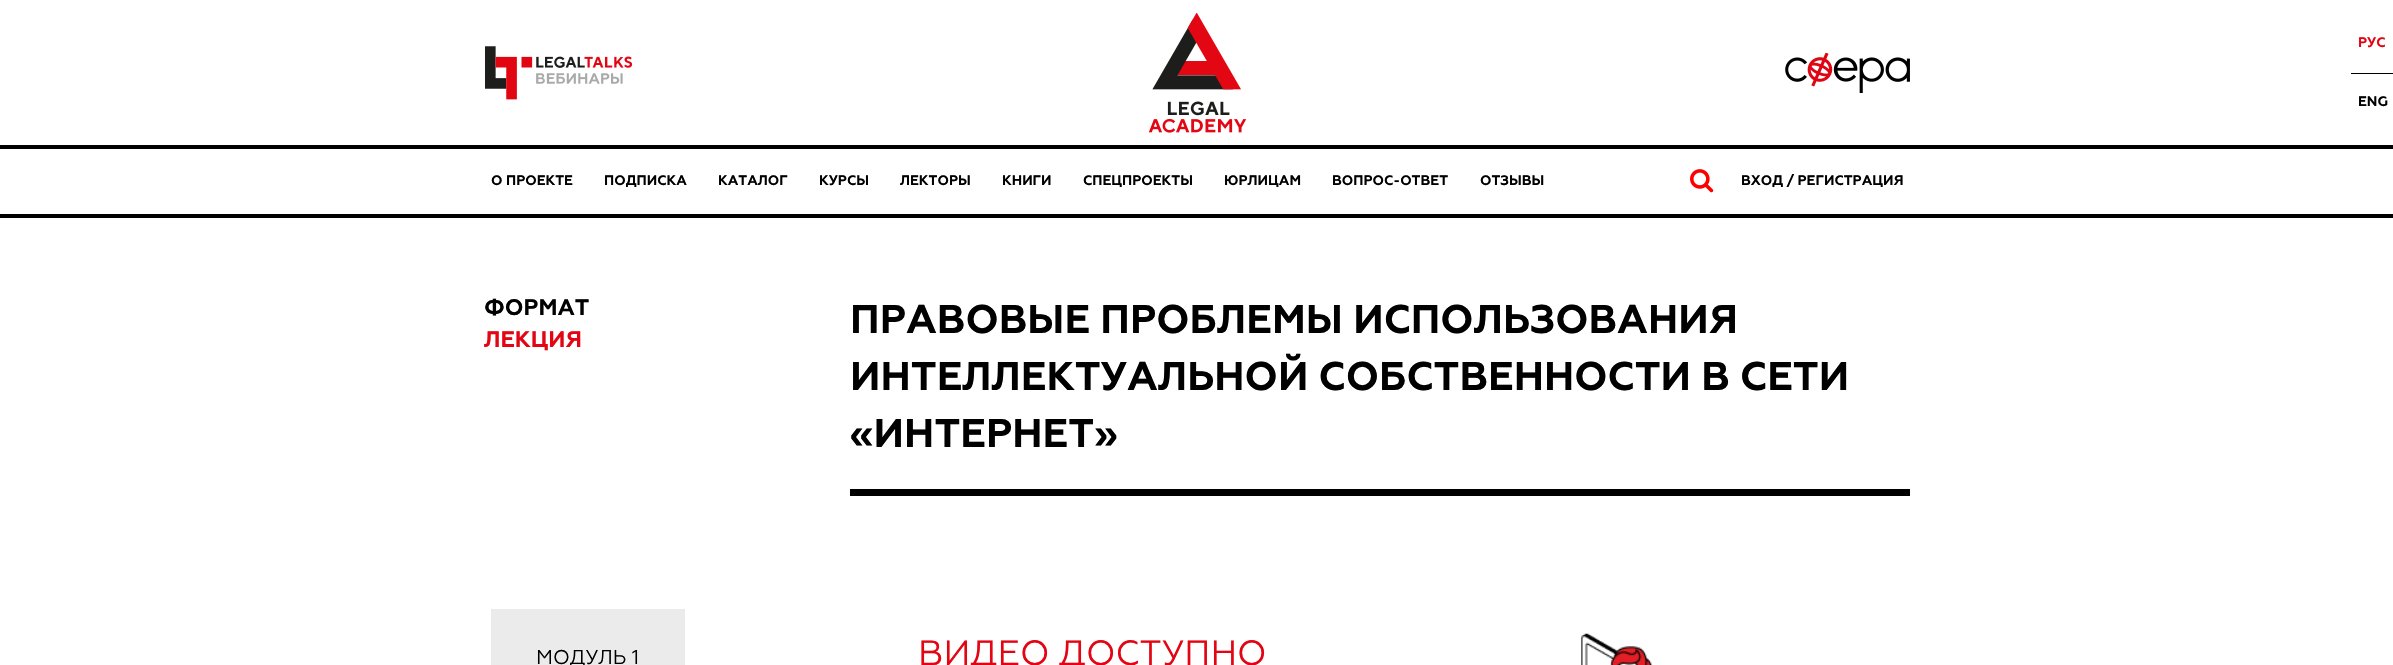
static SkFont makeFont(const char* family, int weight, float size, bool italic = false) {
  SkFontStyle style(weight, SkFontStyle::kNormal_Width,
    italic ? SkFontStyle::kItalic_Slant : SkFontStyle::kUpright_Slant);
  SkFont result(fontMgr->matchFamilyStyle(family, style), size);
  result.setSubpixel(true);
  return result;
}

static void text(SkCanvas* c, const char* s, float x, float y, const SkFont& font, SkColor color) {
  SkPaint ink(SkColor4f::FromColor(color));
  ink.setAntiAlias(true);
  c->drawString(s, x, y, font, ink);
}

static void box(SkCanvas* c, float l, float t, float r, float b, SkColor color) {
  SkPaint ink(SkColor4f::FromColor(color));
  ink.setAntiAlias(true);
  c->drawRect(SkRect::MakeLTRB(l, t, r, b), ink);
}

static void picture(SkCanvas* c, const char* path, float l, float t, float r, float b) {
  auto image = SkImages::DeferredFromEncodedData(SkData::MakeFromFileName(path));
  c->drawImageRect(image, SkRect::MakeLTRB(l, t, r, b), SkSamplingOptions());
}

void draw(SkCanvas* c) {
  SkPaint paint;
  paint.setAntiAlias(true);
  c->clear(0xffffffff);
  picture(c, "img_01.png", 485, 46, 633, 100);
  picture(c, "img_02.png", 1149, 13, 1246, 133);
  picture(c, "img_03.png", 1785, 53, 1910, 93);
  SkFont face1 = makeFont("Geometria", 700, 13.75f);
  text(c, "РУС", 2358, 47, face1, 0xffe30513);
  box(c, 2351, 73, 2393, 74, 0xff000000);
  text(c, "ENG", 2358, 106, face1, 0xff000000);
  box(c, 0, 145, 2393, 149, 0xff000000);
  box(c, 0, 214, 2393, 218, 0xff000000);
  text(c, "О ПРОЕКТЕ", 491, 185, face1, 0xff000000);
  text(c, "ПОДПИСКА", 604, 185, face1, 0xff000000);
  text(c, "КАТАЛОГ", 718, 185, face1, 0xff000000);
  text(c, "КУРСЫ", 819, 185, face1, 0xff000000);
  text(c, "ЛЕКТОРЫ", 900, 185, face1, 0xff000000);
  text(c, "КНИГИ", 1002, 185, face1, 0xff000000);
  text(c, "СПЕЦПРОЕКТЫ", 1083, 185, face1, 0xff000000);
  text(c, "ЮРЛИЦАМ", 1224, 185, face1, 0xff000000);
  text(c, "ВОПРОС-ОТВЕТ", 1332, 185, face1, 0xff000000);
  text(c, "ОТЗЫВЫ", 1480, 185, face1, 0xff000000);
  picture(c, "img_04.png", 1690, 169, 1714, 193);
  text(c, "ВХОД / РЕГИСТРАЦИЯ", 1741, 185, face1, 0xff000000);
  SkFont face2 = makeFont("Geometria", 700, 22.5f);
  text(c, "ФОРМАТ", 484, 315, face2, 0xff000000);
  text(c, "ЛЕКЦИЯ", 484, 347, face2, 0xffe30513);
  box(c, 850, 489, 1910, 496, 0xff000000);
  SkFont face3 = makeFont("Geometria", 700, 40);
  text(c, "ПРАВОВЫЕ ПРОБЛЕМЫ ИСПОЛЬЗОВАНИЯ", 850, 333, face3, 0xff000000);
  text(c, "ИНТЕЛЛЕКТУАЛЬНОЙ СОБСТВЕННОСТИ В СЕТИ", 850, 390, face3, 0xff000000);
  text(c, "«ИНТЕРНЕТ»", 850, 447, face3, 0xff000000);
  box(c, 491, 609, 685, 665, 0xffebebeb);
  SkFont face4 = makeFont("Geometria", 400, 20);
  text(c, "МОДУЛЬ 1", 536, 664, face4, 0xff000000);
  SkFont face5 = makeFont("Geometria", 400, 35);
  text(c, "ВИДЕО ДОСТУПНО", 918, 665, face5, 0xffe30513);
  picture(c, "img_05.png", 1581, 633, 1653, 665);
}
